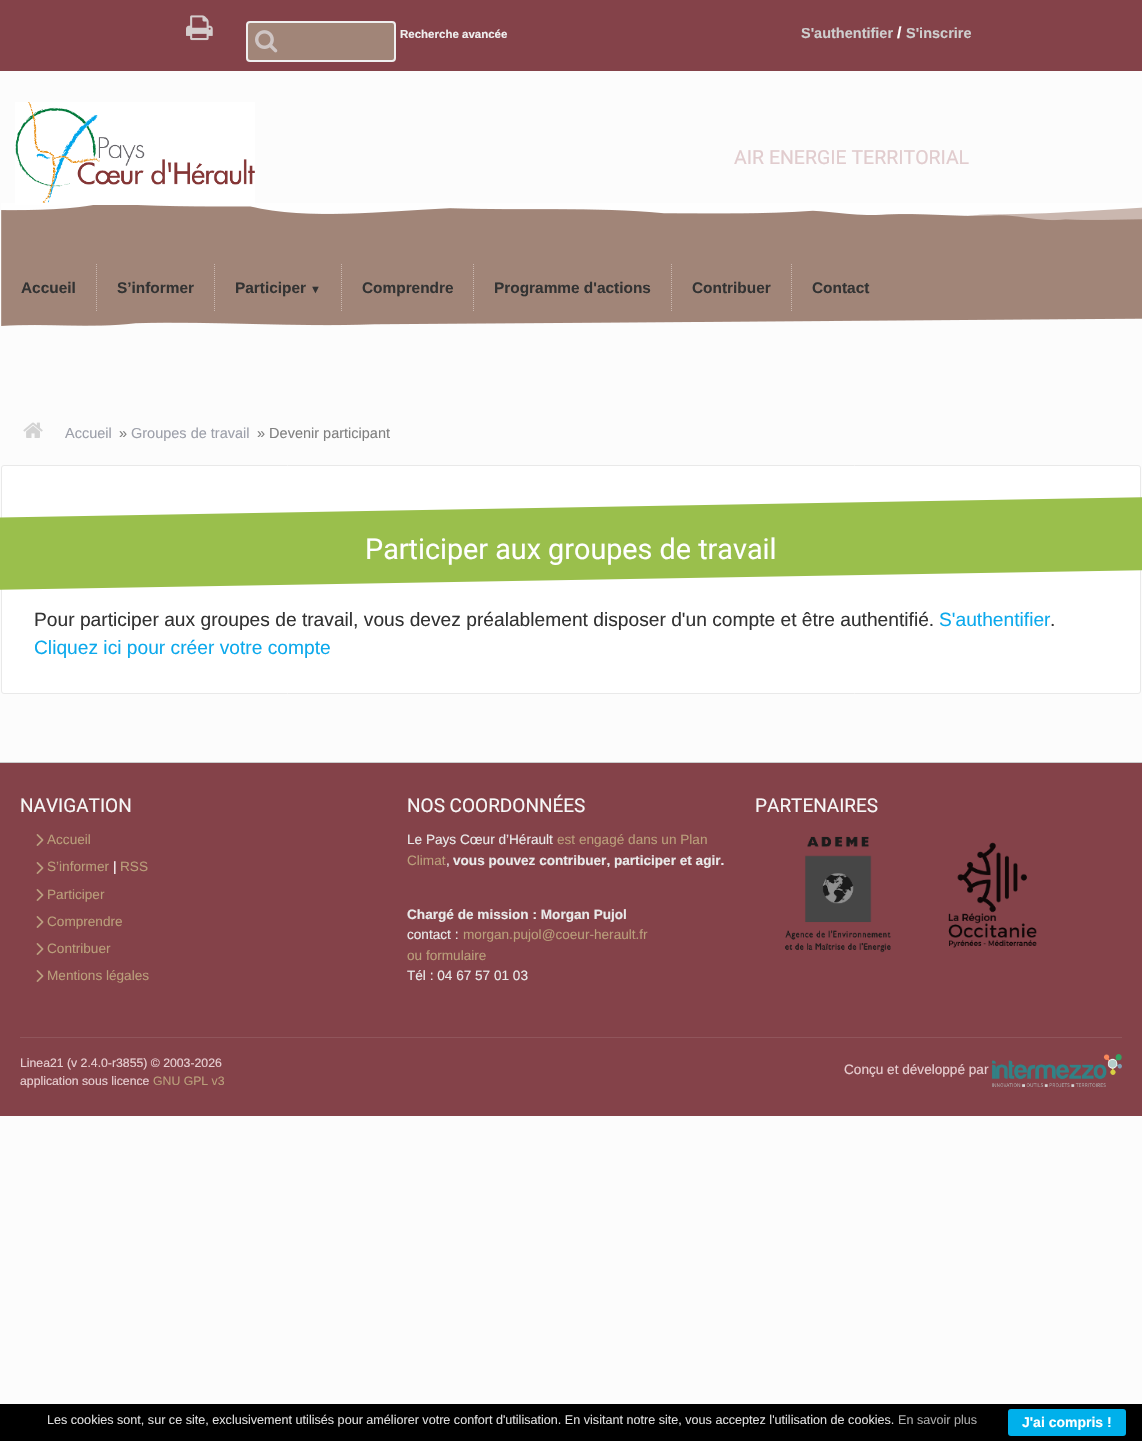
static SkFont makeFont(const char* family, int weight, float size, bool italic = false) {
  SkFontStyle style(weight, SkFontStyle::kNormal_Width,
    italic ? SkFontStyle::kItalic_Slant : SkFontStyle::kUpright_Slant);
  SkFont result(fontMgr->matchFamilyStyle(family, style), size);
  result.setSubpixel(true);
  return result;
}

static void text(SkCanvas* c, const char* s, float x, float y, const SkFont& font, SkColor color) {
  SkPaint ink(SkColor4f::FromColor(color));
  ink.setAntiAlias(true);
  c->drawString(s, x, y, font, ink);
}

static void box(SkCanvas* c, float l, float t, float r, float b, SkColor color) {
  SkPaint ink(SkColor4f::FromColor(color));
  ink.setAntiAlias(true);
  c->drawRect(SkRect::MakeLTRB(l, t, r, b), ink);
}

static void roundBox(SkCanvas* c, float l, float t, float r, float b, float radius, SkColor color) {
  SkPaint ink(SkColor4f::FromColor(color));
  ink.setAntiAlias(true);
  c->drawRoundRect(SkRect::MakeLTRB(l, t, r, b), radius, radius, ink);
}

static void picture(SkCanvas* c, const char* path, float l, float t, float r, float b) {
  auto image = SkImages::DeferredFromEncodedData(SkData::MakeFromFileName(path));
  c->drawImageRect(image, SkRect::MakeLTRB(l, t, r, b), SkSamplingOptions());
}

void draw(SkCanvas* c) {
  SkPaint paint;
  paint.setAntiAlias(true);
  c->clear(0xfffcfcfc);
  picture(c, "img_01.png", 1, 203, 1142, 326);
  box(c, 0, 0, 1142, 71, 0xff844249);
  picture(c, "img_02.png", 186, 15, 213, 41);
  paint.setColor(0xffa18578);
  c->drawRoundRect(SkRect::MakeLTRB(247, 22, 395, 61), 3, 3, paint);
  paint.setStyle(SkPaint::kStroke_Style);
  paint.setStrokeWidth(2);
  paint.setColor(0xffefefef);
  c->drawRoundRect(SkRect::MakeLTRB(247, 22, 395, 61), 3, 3, paint);
  SkFont face1 = makeFont("Liberation Sans", 700, 11.5f);
  text(c, "Recherche avancée", 400, 38, face1, 0xffefefef);
  picture(c, "img_03.png", 255, 30, 278, 53);
  SkFont face2 = makeFont("Liberation Sans", 700, 14.5f);
  text(c, "S'authentifier", 801, 38, face2, 0xffcecece);
  SkFont face3 = makeFont("Liberation Sans", 700, 16);
  text(c, "/", 897, 38, face3, 0xffffffff);
  text(c, "S'inscrire", 906, 38, face2, 0xffcecece);
  picture(c, "img_04.png", 15, 102, 255, 205);
  SkFont face4 = makeFont("Roboto", 400, 19.5f);
  text(c, "AIR ENERGIE TERRITORIAL", 734, 164, face4, 0xffe1ccce);
  paint.setStrokeWidth(1);
  paint.setColor(0xffcab7af);
  paint.setPathEffect(SkDashPathEffect::Make({{1, 1}}, 0));
  c->drawPath(SkPathBuilder().moveTo(96.5f, 264).lineTo(96.5f, 311).detach(), paint);
  paint.setPathEffect(nullptr);
  SkFont face5 = makeFont("Liberation Sans", 700, 15.4f);
  text(c, "Accueil", 21, 293, face5, 0xff333333);
  paint.setPathEffect(SkDashPathEffect::Make({{1, 1}}, 0));
  c->drawPath(SkPathBuilder().moveTo(214.5f, 264).lineTo(214.5f, 311).detach(), paint);
  paint.setPathEffect(nullptr);
  text(c, "S’informer", 117, 293, face5, 0xff333333);
  paint.setPathEffect(SkDashPathEffect::Make({{1, 1}}, 0));
  c->drawPath(SkPathBuilder().moveTo(341.5f, 264).lineTo(341.5f, 311).detach(), paint);
  paint.setPathEffect(nullptr);
  text(c, "Participer", 235, 293, face5, 0xff333333);
  SkFont face6 = makeFont("Liberation Sans", 700, 11);
  text(c, "▼", 310, 293, face6, 0xff333333);
  paint.setPathEffect(SkDashPathEffect::Make({{1, 1}}, 0));
  c->drawPath(SkPathBuilder().moveTo(473.5f, 264).lineTo(473.5f, 311).detach(), paint);
  paint.setPathEffect(nullptr);
  text(c, "Comprendre", 362, 293, face5, 0xff333333);
  paint.setPathEffect(SkDashPathEffect::Make({{1, 1}}, 0));
  c->drawPath(SkPathBuilder().moveTo(671.5f, 264).lineTo(671.5f, 311).detach(), paint);
  paint.setPathEffect(nullptr);
  text(c, "Programme d'actions", 494, 293, face5, 0xff333333);
  paint.setPathEffect(SkDashPathEffect::Make({{1, 1}}, 0));
  c->drawPath(SkPathBuilder().moveTo(791.5f, 264).lineTo(791.5f, 311).detach(), paint);
  paint.setPathEffect(nullptr);
  text(c, "Contribuer", 692, 293, face5, 0xff333333);
  text(c, "Contact", 812, 293, face5, 0xff333333);
  picture(c, "img_05.png", 23, 422, 43, 438);
  SkFont face7 = makeFont("Liberation Sans", 400, 14.5f);
  text(c, "Accueil", 65, 438, face7, 0xff9da0aa);
  text(c, "»", 119, 438, face7, 0xff808080);
  text(c, "Groupes de travail", 131, 438, face7, 0xff9da0aa);
  text(c, "» Devenir participant", 257, 438, face7, 0xff808080);
  paint.setStyle(SkPaint::kFill_Style);
  paint.setColor(0xffffffff);
  c->drawRoundRect(SkRect::MakeLTRB(1.5f, 465.5f, 1140.5f, 693.5f), 2.5f, 2.5f, paint);
  paint.setStyle(SkPaint::kStroke_Style);
  paint.setColor(0xffe9e9e9);
  c->drawRoundRect(SkRect::MakeLTRB(1.5f, 465.5f, 1140.5f, 693.5f), 2.5f, 2.5f, paint);
  paint.setStyle(SkPaint::kFill_Style);
  paint.setColor(0xff9abf4c);
  c->drawPath(SkPathBuilder().moveTo(-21, 518).lineTo(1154, 497).lineTo(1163, 570).lineTo(-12, 590).close().detach(), paint);
  SkFont face8 = makeFont("Roboto", 400, 28.75f);
  text(c, "Participer aux groupes de travail", 365, 559, face8, 0xffffffff);
  SkFont face9 = makeFont("Liberation Sans", 400, 19.2f);
  text(c, "Pour participer aux groupes de travail, vous devez préalablement disposer d'un compte et être authentifié.", 34, 626, face9, 0xff333333);
  text(c, "S'authentifier", 939, 626, face9, 0xff0ca9ec);
  text(c, ".", 1050, 626, face9, 0xff333333);
  text(c, "Cliquez ici pour créer votre compte", 34, 654, face9, 0xff0ca9ec);
  box(c, 0, 763, 1142, 1116, 0xff844249);
  box(c, 0, 762, 1142, 763, 0xffcccccc);
  SkFont face10 = makeFont("Roboto", 400, 19);
  text(c, "NAVIGATION", 20, 812, face10, 0xfff7f7f7);
  picture(c, "img_06.png", 36, 834, 44, 846);
  SkFont face11 = makeFont("Liberation Sans", 400, 13.6f);
  text(c, "Accueil", 47, 844, face11, 0xffba9e7a);
  picture(c, "img_06.png", 36, 862, 44, 874);
  text(c, "S’informer", 47, 871, face11, 0xffba9e7a);
  text(c, "|", 113, 871, face11, 0xffffffff);
  text(c, "RSS", 120, 871, face11, 0xffba9e7a);
  picture(c, "img_06.png", 36, 889, 44, 901);
  text(c, "Participer", 47, 899, face11, 0xffba9e7a);
  picture(c, "img_06.png", 36, 916, 44, 928);
  text(c, "Comprendre", 47, 926, face11, 0xffba9e7a);
  picture(c, "img_06.png", 36, 943, 44, 955);
  text(c, "Contribuer", 47, 953, face11, 0xffba9e7a);
  picture(c, "img_06.png", 36, 970, 44, 982);
  text(c, "Mentions légales", 47, 980, face11, 0xffba9e7a);
  text(c, "NOS COORDONNÉES", 407, 812, face10, 0xfff7f7f7);
  text(c, "Le Pays Cœur d’Hérault", 407, 844, face11, 0xffe9e9e9);
  text(c, "est engagé dans un Plan", 557, 844, face11, 0xffba9e7a);
  text(c, "Climat", 407, 865, face11, 0xffba9e7a);
  text(c, ",", 446, 865, face11, 0xffe9e9e9);
  SkFont face12 = makeFont("Liberation Sans", 700, 13.6f);
  text(c, "vous pouvez contribuer, participer et agir.", 453, 865, face12, 0xffe9e9e9);
  text(c, "Chargé de mission : Morgan Pujol", 407, 919, face12, 0xffe9e9e9);
  text(c, "contact :", 407, 939, face11, 0xffe9e9e9);
  text(c, "morgan.pujol@coeur-herault.fr", 463, 939, face11, 0xffba9e7a);
  text(c, "ou formulaire", 407, 960, face11, 0xffba9e7a);
  text(c, "Tél : 04 67 57 01 03", 407, 980, face11, 0xffe9e9e9);
  text(c, "PARTENAIRES", 755, 812, face10, 0xfff7f7f7);
  picture(c, "img_07.png", 785, 836, 891, 953);
  picture(c, "img_08.png", 948, 842, 1037, 948);
  box(c, 20, 1037, 1122, 1038, 0xff90555b);
  SkFont face13 = makeFont("Liberation Sans", 400, 12.25f);
  text(c, "Linea21 (v 2.4.0-r3855) © 2003-2026", 20, 1067, face13, 0xffe7cdd0);
  text(c, "application sous licence", 20, 1085, face13, 0xffe7cdd0);
  text(c, "GNU GPL v3", 153, 1085, face13, 0xffba9e7a);
  text(c, "Conçu et développé par", 844, 1074, face11, 0xffe7cdd0);
  picture(c, "img_09.png", 992, 1054, 1122, 1087);
  box(c, 0, 1404, 1142, 1441, 0xff000000);
  SkFont face14 = makeFont("Liberation Sans", 400, 12.6f);
  text(c, "Les cookies sont, sur ce site, exclusivement utilisés pour améliorer votre confort d'utilisation. En visitant notre site, vous acceptez l'utilisation de cookies.", 47, 1424, face14, 0xffdddddd);
  text(c, "En savoir plus", 898, 1424, face14, 0xffaaaaaa);
  roundBox(c, 1008, 1409, 1126, 1436, 3, 0xff00b0eb);
  SkFont face15 = makeFont("Liberation Sans", 700, 14);
  text(c, "J'ai compris !", 1022, 1427, face15, 0xffffffff);
}
